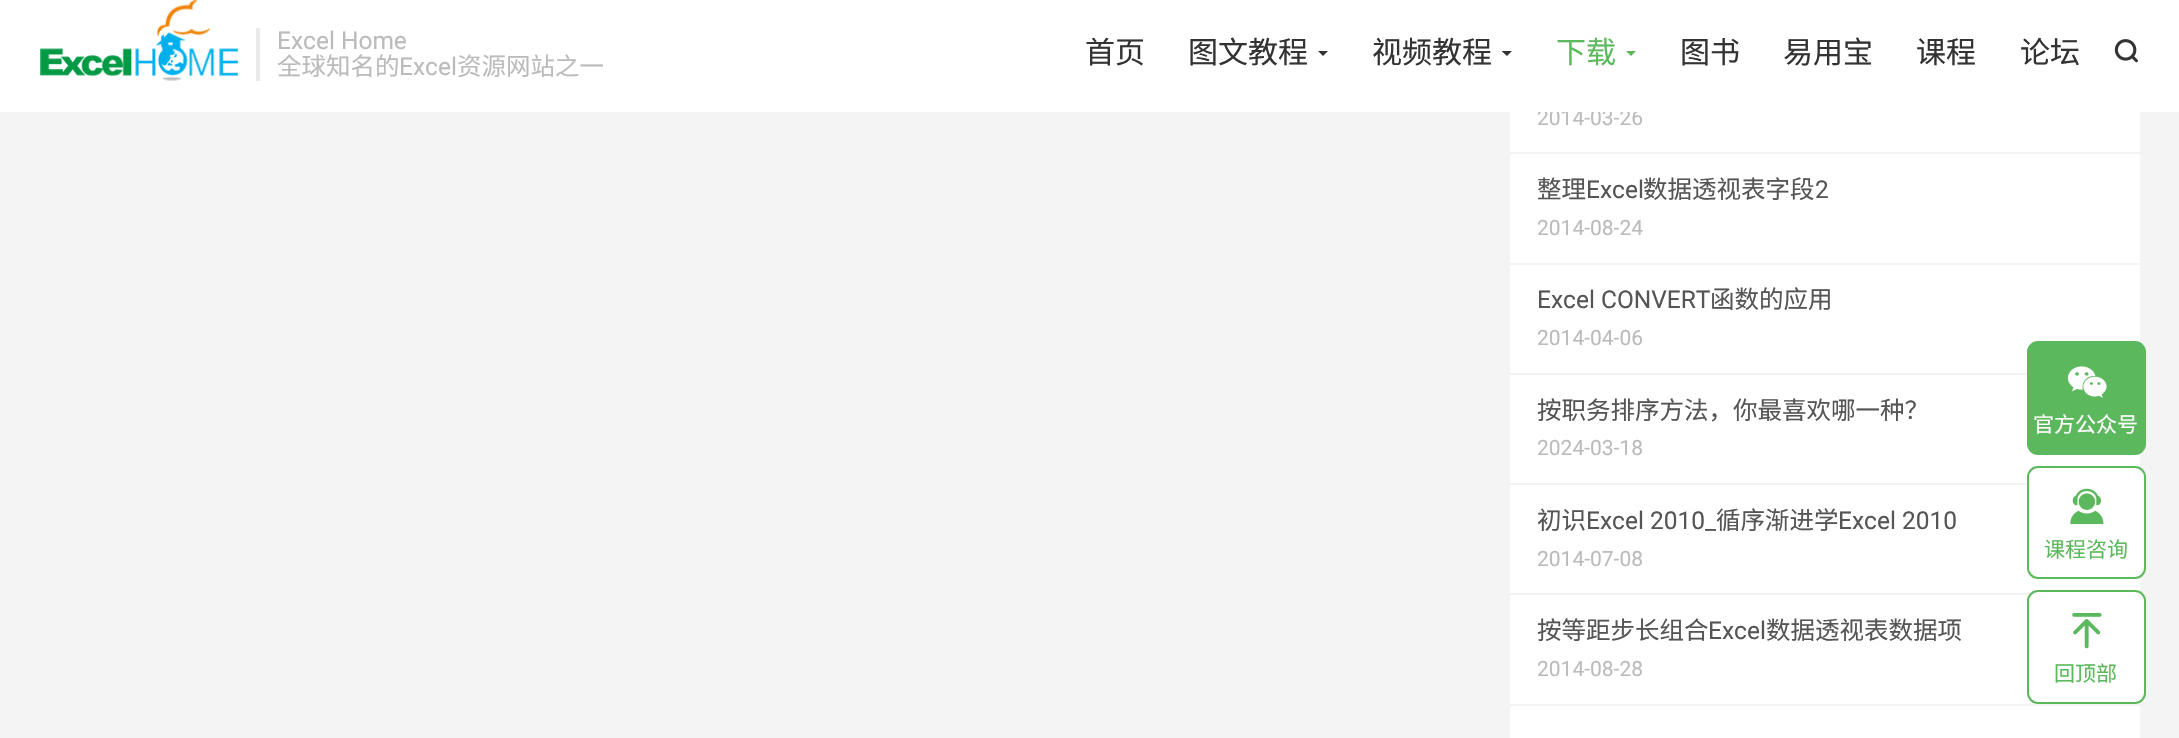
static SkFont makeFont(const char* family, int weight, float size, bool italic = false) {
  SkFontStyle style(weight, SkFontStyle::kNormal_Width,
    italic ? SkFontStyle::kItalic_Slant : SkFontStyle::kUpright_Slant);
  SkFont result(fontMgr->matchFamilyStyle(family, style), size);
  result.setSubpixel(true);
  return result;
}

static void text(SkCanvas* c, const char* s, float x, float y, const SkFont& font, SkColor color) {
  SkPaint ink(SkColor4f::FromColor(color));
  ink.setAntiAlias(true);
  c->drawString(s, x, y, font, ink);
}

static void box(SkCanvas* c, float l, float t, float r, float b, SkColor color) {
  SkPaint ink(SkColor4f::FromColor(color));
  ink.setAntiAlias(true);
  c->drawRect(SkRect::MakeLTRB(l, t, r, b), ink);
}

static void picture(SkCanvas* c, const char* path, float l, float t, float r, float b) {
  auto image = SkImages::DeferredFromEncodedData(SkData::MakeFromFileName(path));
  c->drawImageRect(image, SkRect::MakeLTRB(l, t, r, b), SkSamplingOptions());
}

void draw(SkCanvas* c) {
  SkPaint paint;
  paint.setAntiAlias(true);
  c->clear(0xfff4f4f4);
  box(c, 1510, 112, 2140, 738, 0xffffffff);
  SkFont face1 = makeFont("Roboto", 400, 21);
  text(c, "2014-03-26", 1537, 125, face1, 0xffbbbbbb);
  box(c, 0, 0, 2179, 112, 0xffffffff);
  picture(c, "img_01.png", 40, 0, 238, 81);
  box(c, 256, 28, 260, 81, 0xffeaeaea);
  SkFont face2 = makeFont("Roboto", 400, 24.5f);
  text(c, "Excel Home", 277, 49, face2, 0xffbbbbbb);
  SkFont face3 = makeFont("Noto Sans CJK SC", 400, 24.5f);
  text(c, "全球知名的", 277, 75, face3, 0xffbbbbbb);
  text(c, "Excel", 399, 75, face2, 0xffbbbbbb);
  text(c, "资源网站之一", 457, 75, face3, 0xffbbbbbb);
  SkFont face4 = makeFont("Noto Sans CJK SC", 400, 30);
  text(c, "首页", 1085, 63, face4, 0xff333333);
  text(c, "图文教程", 1188, 63, face4, 0xff333333);
  paint.setColor(0xff333333);
  c->drawPath(SkPathBuilder().moveTo(1318, 51).lineTo(1328, 51).lineTo(1323, 56).close().detach(), paint);
  text(c, "视频教程", 1372, 63, face4, 0xff333333);
  c->drawPath(SkPathBuilder().moveTo(1501.5f, 51).lineTo(1512, 51).lineTo(1507, 56).close().detach(), paint);
  text(c, "下载", 1556, 63, face4, 0xff5cb85c);
  paint.setColor(0xff5cb85c);
  c->drawPath(SkPathBuilder().moveTo(1626, 51).lineTo(1636, 51).lineTo(1631, 56).close().detach(), paint);
  text(c, "图书", 1680, 63, face4, 0xff333333);
  text(c, "易用宝", 1783, 63, face4, 0xff333333);
  text(c, "课程", 1916, 63, face4, 0xff333333);
  text(c, "论坛", 2020, 63, face4, 0xff333333);
  picture(c, "img_02.png", 2114, 39, 2138, 63);
  box(c, 1510, 152, 2140, 154, 0xfff3f3f3);
  box(c, 1510, 263, 2140, 265, 0xfff3f3f3);
  text(c, "整理", 1537, 198, face3, 0xff555555);
  text(c, "Excel", 1586, 198, face2, 0xff555555);
  text(c, "数据透视表字段", 1643, 198, face3, 0xff555555);
  text(c, "2", 1815, 198, face2, 0xff555555);
  text(c, "2014-08-24", 1537, 235, face1, 0xffbbbbbb);
  box(c, 1510, 373, 2027, 375, 0xfff3f3f3);
  text(c, "Excel CONVERT", 1537, 308, face2, 0xff555555);
  text(c, "函数的应用", 1710, 308, face3, 0xff555555);
  text(c, "2014-04-06", 1537, 345, face1, 0xffbbbbbb);
  box(c, 1510, 483, 2027, 485, 0xfff3f3f3);
  text(c, "按职务排序方法，你最喜欢哪一种？", 1537, 419, face3, 0xff555555);
  text(c, "2024-03-18", 1537, 455, face1, 0xffbbbbbb);
  box(c, 1510, 593, 2031, 595, 0xfff3f3f3);
  text(c, "初识", 1537, 529, face3, 0xff555555);
  text(c, "Excel 2010_", 1586, 529, face2, 0xff555555);
  text(c, "循序渐进学", 1716, 529, face3, 0xff555555);
  text(c, "Excel 2010", 1838, 529, face2, 0xff555555);
  text(c, "2014-07-08", 1537, 566, face1, 0xffbbbbbb);
  box(c, 1510, 704, 2140, 706, 0xfff3f3f3);
  text(c, "按等距步长组合", 1537, 639, face3, 0xff555555);
  text(c, "Excel", 1708, 639, face2, 0xff555555);
  text(c, "数据透视表数据项", 1766, 639, face3, 0xff555555);
  text(c, "2014-08-28", 1537, 676, face1, 0xffbbbbbb);
  c->drawRoundRect(SkRect::MakeLTRB(2028, 342, 2145, 454), 10, 10, paint);
  paint.setStyle(SkPaint::kStroke_Style);
  paint.setStrokeWidth(2);
  c->drawRoundRect(SkRect::MakeLTRB(2028, 342, 2145, 454), 10, 10, paint);
  picture(c, "img_03.png", 2067, 366, 2107, 398);
  SkFont face5 = makeFont("Noto Sans CJK SC", 400, 21);
  text(c, "官方公众号", 2033, 432, face5, 0xffffffff);
  paint.setStyle(SkPaint::kFill_Style);
  paint.setColor(0xffffffff);
  c->drawRoundRect(SkRect::MakeLTRB(2028, 467, 2145, 578), 10, 10, paint);
  paint.setStyle(SkPaint::kStroke_Style);
  paint.setColor(0xff5cb85c);
  c->drawRoundRect(SkRect::MakeLTRB(2028, 467, 2145, 578), 10, 10, paint);
  picture(c, "img_04.png", 2070, 488, 2104, 525);
  text(c, "课程咨询", 2044, 557, face5, 0xff5cb85c);
  paint.setStyle(SkPaint::kFill_Style);
  paint.setColor(0xffffffff);
  c->drawRoundRect(SkRect::MakeLTRB(2028, 591, 2145, 703), 10, 10, paint);
  paint.setStyle(SkPaint::kStroke_Style);
  paint.setColor(0xff5cb85c);
  c->drawRoundRect(SkRect::MakeLTRB(2028, 591, 2145, 703), 10, 10, paint);
  picture(c, "img_05.png", 2072, 613, 2102, 649);
  text(c, "回顶部", 2054, 681, face5, 0xff5cb85c);
}
